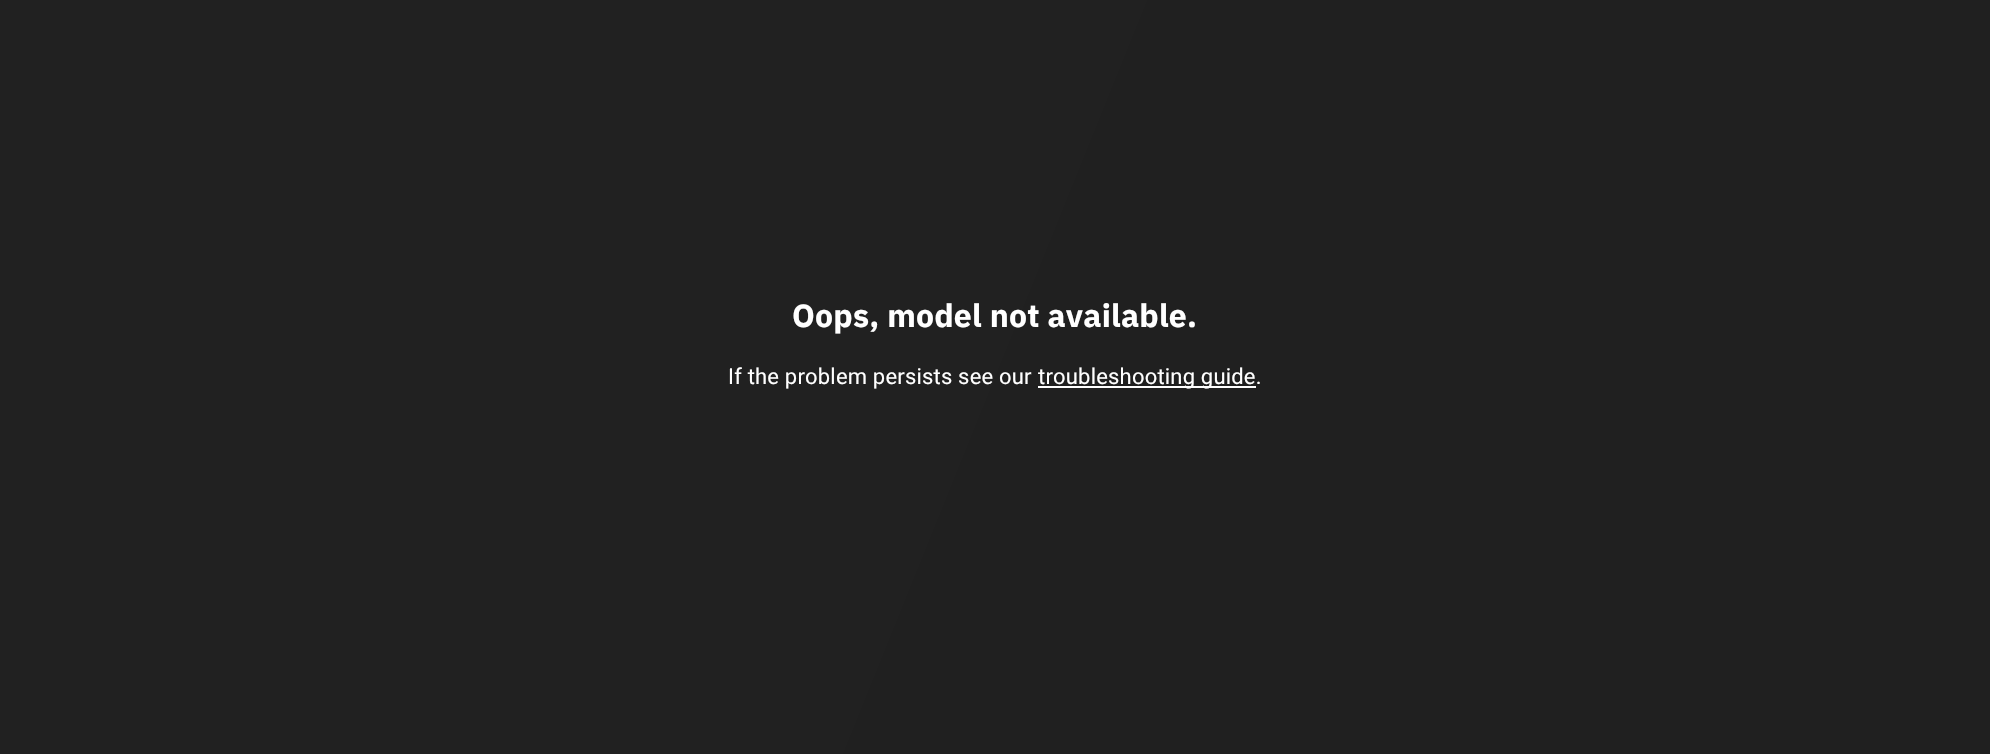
static SkFont makeFont(const char* family, int weight, float size, bool italic = false) {
  SkFontStyle style(weight, SkFontStyle::kNormal_Width,
    italic ? SkFontStyle::kItalic_Slant : SkFontStyle::kUpright_Slant);
  SkFont result(fontMgr->matchFamilyStyle(family, style), size);
  result.setSubpixel(true);
  return result;
}

static void spacedText(SkCanvas* c, const char* s, float x, float y, const SkFont& font, const SkPaint& ink, float letter, float word) {
  std::vector<SkGlyphID> glyphs(font.countText(s, strlen(s), SkTextEncoding::kUTF8));
  std::vector<float> xs(glyphs.size());
  font.textToGlyphs(s, strlen(s), SkTextEncoding::kUTF8, glyphs);
  font.getXPos(glyphs, xs, x);
  float extra = 0;
  for (size_t i = 0; i < glyphs.size(); i++) {
    xs[i] += extra;
    extra += letter + word * (glyphs[i] == font.unicharToGlyph(' '));
  }
  c->drawTextBlob(SkTextBlob::MakeFromPosHGlyphs(glyphs, xs, y, font), 0, 0, ink);
}

static void box(SkCanvas* c, float l, float t, float r, float b, SkColor color) {
  SkPaint ink(SkColor4f::FromColor(color));
  ink.setAntiAlias(true);
  c->drawRect(SkRect::MakeLTRB(l, t, r, b), ink);
}

void draw(SkCanvas* c) {
  SkPaint paint;
  paint.setAntiAlias(true);
  c->clear(0xffffffff);
  {
    const SkColor colors[] = {0xff212121, 0xff202020};
    const float stops[] = {0, 1};
    const SkPoint ends[] = {{9, -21}, {1981, 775}};
    paint.setShader(SkGradientShader::MakeLinear(ends, colors, stops, 2, SkTileMode::kClamp));
    paint.setAlpha(255);
  }
  c->drawRect(SkRect::MakeLTRB(0, 0, 1990, 754), paint);
  SkFont face1 = makeFont("IBM Plex Sans", 700, 32);
  paint.setShader(nullptr);
  paint.setColor(0xffffffff);
  spacedText(c, "Oops, model not available.", 792, 327, face1, paint, 0.2f, 0);
  SkFont face2 = makeFont("Roboto", 400, 22);
  spacedText(c, "If the problem persists see our", 728, 384, face2, paint, 0.2f, 0);
  box(c, 1038, 386, 1256, 388, 0xffffffff);
  spacedText(c, "troubleshooting guide.", 1038, 384, face2, paint, 0.2f, 0);
}
